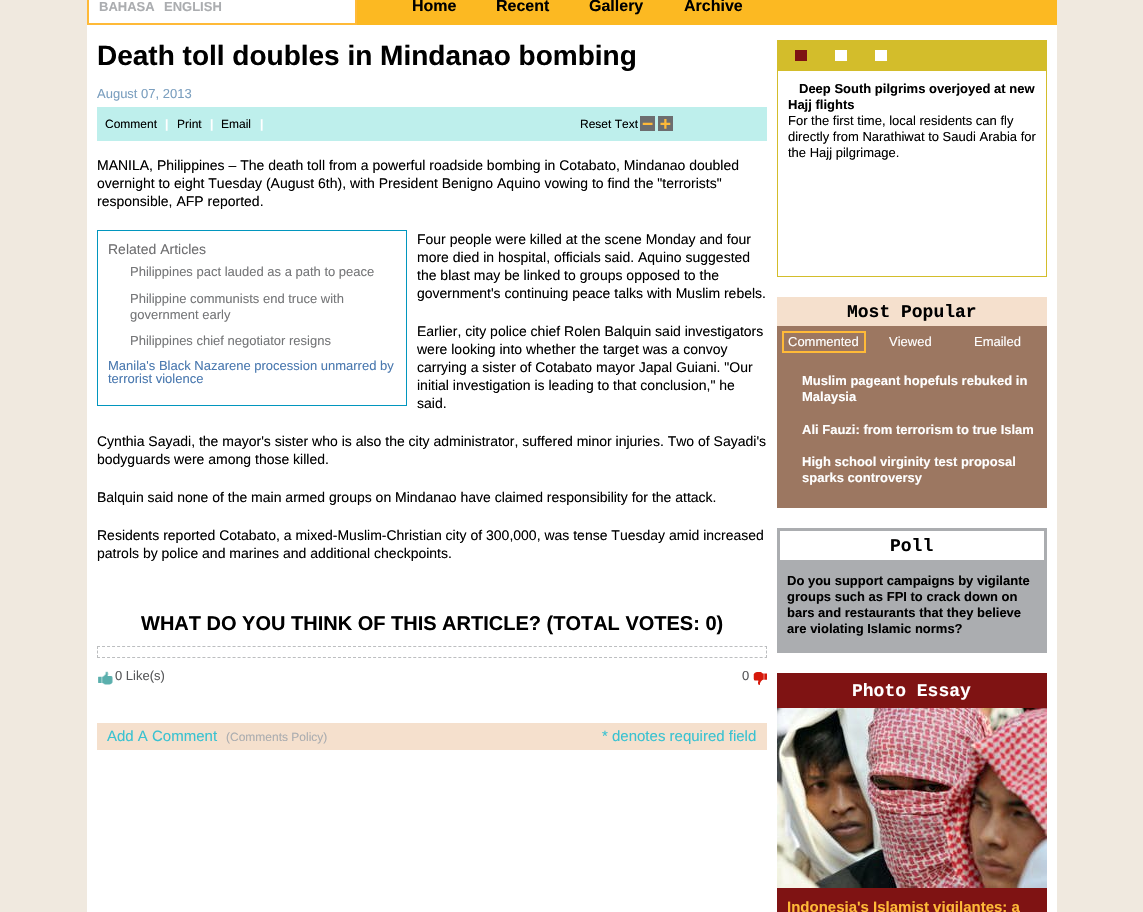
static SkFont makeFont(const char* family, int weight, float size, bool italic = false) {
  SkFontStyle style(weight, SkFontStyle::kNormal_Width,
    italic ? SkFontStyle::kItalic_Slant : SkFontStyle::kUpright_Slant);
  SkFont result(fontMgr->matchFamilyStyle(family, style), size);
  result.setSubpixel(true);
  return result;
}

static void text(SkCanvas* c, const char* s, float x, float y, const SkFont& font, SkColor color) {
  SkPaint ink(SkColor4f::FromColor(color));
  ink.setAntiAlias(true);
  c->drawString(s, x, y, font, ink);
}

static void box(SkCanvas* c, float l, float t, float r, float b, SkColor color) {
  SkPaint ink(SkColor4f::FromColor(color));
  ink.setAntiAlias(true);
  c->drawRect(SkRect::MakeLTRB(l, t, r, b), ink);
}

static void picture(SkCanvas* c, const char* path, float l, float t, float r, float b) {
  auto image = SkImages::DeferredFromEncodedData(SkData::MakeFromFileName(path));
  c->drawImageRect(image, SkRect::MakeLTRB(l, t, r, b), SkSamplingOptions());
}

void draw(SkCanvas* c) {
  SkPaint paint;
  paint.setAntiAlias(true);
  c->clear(0xfff0e9df);
  box(c, 357, 0, 1057, 25, 0xfffcb922);
  paint.setColor(0xffffffff);
  c->drawRect(SkRect::MakeLTRB(88, -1, 356, 24), paint);
  paint.setStyle(SkPaint::kStroke_Style);
  paint.setStrokeWidth(2);
  paint.setColor(0xffffba38);
  c->drawRect(SkRect::MakeLTRB(88, -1, 356, 24), paint);
  SkFont face1 = makeFont("Liberation Sans", 700, 13);
  text(c, "BAHASA", 99, 11, face1, 0xffabadb0);
  text(c, "ENGLISH", 164, 11, face1, 0xffabadb0);
  SkFont face2 = makeFont("Liberation Sans", 700, 16);
  text(c, "Home", 412, 11, face2, 0xff000000);
  text(c, "Recent", 496, 11, face2, 0xff000000);
  text(c, "Gallery", 589, 11, face2, 0xff000000);
  text(c, "Archive", 684, 11, face2, 0xff000000);
  box(c, 87, 25, 1057, 912, 0xffffffff);
  SkFont face3 = makeFont("Liberation Sans", 700, 28);
  text(c, "Death toll doubles in Mindanao bombing", 97, 65, face3, 0xff000000);
  SkFont face4 = makeFont("Liberation Sans", 400, 13);
  text(c, "August 07, 2013", 97, 98, face4, 0xff7b9fbf);
  box(c, 97, 107, 767, 141, 0xffbeefec);
  SkFont face5 = makeFont("Liberation Sans", 400, 12);
  text(c, "Comment", 105, 128, face5, 0xff000000);
  SkFont face6 = makeFont("Liberation Sans", 700, 12);
  text(c, "|", 165, 128, face6, 0xffffffff);
  text(c, "Print", 177, 128, face5, 0xff000000);
  text(c, "|", 210, 128, face6, 0xffffffff);
  text(c, "Email", 221, 128, face5, 0xff000000);
  text(c, "|", 260, 128, face6, 0xffffffff);
  text(c, "Reset Text", 580, 128, face5, 0xff000000);
  picture(c, "img_01.png", 640, 116, 655, 131);
  picture(c, "img_02.png", 658, 116, 673, 131);
  SkFont face7 = makeFont("Liberation Sans", 400, 14);
  text(c, "MANILA, Philippines – The death toll from a powerful roadside bombing in Cotabato, Mindanao doubled", 97, 170, face7, 0xff000000);
  text(c, "overnight to eight Tuesday (August 6th), with President Benigno Aquino vowing to find the \"terrorists\"", 97, 188, face7, 0xff000000);
  text(c, "responsible, AFP reported.", 97, 206, face7, 0xff000000);
  paint.setStrokeWidth(1);
  paint.setColor(0xff0196be);
  c->drawRect(SkRect::MakeLTRB(97.5f, 230.5f, 406.5f, 405.5f), paint);
  text(c, "Related Articles", 108, 254, face7, 0xff6e6e70);
  text(c, "Philippines pact lauded as a path to peace", 130, 276, face4, 0xff757678);
  text(c, "Philippine communists end truce with", 130, 303, face4, 0xff757678);
  text(c, "government early", 130, 319, face4, 0xff757678);
  text(c, "Philippines chief negotiator resigns", 130, 345, face4, 0xff757678);
  text(c, "Manila's Black Nazarene procession unmarred by", 108, 370, face4, 0xff4978af);
  text(c, "terrorist violence", 108, 383, face4, 0xff4978af);
  text(c, "Four people were killed at the scene Monday and four", 417, 244, face7, 0xff000000);
  text(c, "more died in hospital, officials said. Aquino suggested", 417, 262, face7, 0xff000000);
  text(c, "the blast may be linked to groups opposed to the", 417, 280, face7, 0xff000000);
  text(c, "government's continuing peace talks with Muslim rebels.", 417, 298, face7, 0xff000000);
  text(c, "Earlier, city police chief Rolen Balquin said investigators", 417, 336, face7, 0xff000000);
  text(c, "were looking into whether the target was a convoy", 417, 354, face7, 0xff000000);
  text(c, "carrying a sister of Cotabato mayor Japal Guiani. \"Our", 417, 372, face7, 0xff000000);
  text(c, "initial investigation is leading to that conclusion,\" he", 417, 390, face7, 0xff000000);
  text(c, "said.", 417, 408, face7, 0xff000000);
  text(c, "Cynthia Sayadi, the mayor's sister who is also the city administrator, suffered minor injuries. Two of Sayadi's", 97, 446, face7, 0xff000000);
  text(c, "bodyguards were among those killed.", 97, 464, face7, 0xff000000);
  text(c, "Balquin said none of the main armed groups on Mindanao have claimed responsibility for the attack.", 97, 502, face7, 0xff000000);
  text(c, "Residents reported Cotabato, a mixed-Muslim-Christian city of 300,000, was tense Tuesday amid increased", 97, 540, face7, 0xff000000);
  text(c, "patrols by police and marines and additional checkpoints.", 97, 558, face7, 0xff000000);
  SkFont face8 = makeFont("Liberation Sans", 700, 20);
  text(c, "WHAT DO YOU THINK OF THIS ARTICLE? (TOTAL VOTES: 0)", 141, 630, face8, 0xff000000);
  paint.setColor(0xffbcbec0);
  paint.setPathEffect(SkDashPathEffect::Make({{3, 2.02f}}, 0));
  c->drawPath(SkPathBuilder().moveTo(97, 646.5f).lineTo(767, 646.5f).detach(), paint);
  paint.setPathEffect(nullptr);
  c->drawPath(SkPathBuilder().moveTo(766.5f, 646).lineTo(766.5f, 649).moveTo(766.5f, 650.5f).lineTo(766.5f, 653.5f).moveTo(766.5f, 655).lineTo(766.5f, 658).detach(), paint);
  paint.setPathEffect(SkDashPathEffect::Make({{3, 2.02f}}, 0));
  c->drawPath(SkPathBuilder().moveTo(97, 657.5f).lineTo(767, 657.5f).detach(), paint);
  paint.setPathEffect(nullptr);
  c->drawPath(SkPathBuilder().moveTo(97.5f, 646).lineTo(97.5f, 649).moveTo(97.5f, 650.5f).lineTo(97.5f, 653.5f).moveTo(97.5f, 655).lineTo(97.5f, 658).detach(), paint);
  picture(c, "img_03.png", 98, 671, 113, 685);
  text(c, "0 Like(s)", 115, 680, face4, 0xff58595b);
  picture(c, "img_04.png", 753, 672, 767, 685);
  text(c, "0", 742, 680, face4, 0xff58595b);
  box(c, 97, 723, 767, 750, 0xfff5e0cd);
  SkFont face9 = makeFont("Liberation Sans", 400, 15);
  text(c, "Add A Comment", 107, 741, face9, 0xff39c2d1);
  text(c, "(Comments Policy)", 226, 741, face5, 0xffabadb0);
  text(c, "* denotes required field", 602, 741, face9, 0xff39c2d1);
  paint.setColor(0xffd3bd2b);
  c->drawRect(SkRect::MakeLTRB(777.5f, 40.5f, 1046.5f, 276.5f), paint);
  box(c, 778, 41, 1046, 71, 0xffd3bd2b);
  box(c, 795, 50, 807, 61, 0xff7e1313);
  box(c, 835, 50, 847, 61, 0xffffffff);
  box(c, 875, 50, 887, 61, 0xffffffff);
  text(c, "Deep South pilgrims overjoyed at new", 799, 93, face1, 0xff000000);
  text(c, "Hajj flights", 788, 109, face1, 0xff000000);
  text(c, "For the first time, local residents can fly", 788, 125, face4, 0xff000000);
  text(c, "directly from Narathiwat to Saudi Arabia for", 788, 141, face4, 0xff000000);
  text(c, "the Hajj pilgrimage.", 788, 157, face4, 0xff000000);
  box(c, 777, 297, 1047, 326, 0xfff5e0cd);
  SkFont face10 = makeFont("Liberation Mono", 700, 18);
  text(c, "Most Popular", 847, 317, face10, 0xff000000);
  box(c, 777, 326, 1047, 508, 0xff9c7761);
  paint.setStrokeWidth(2);
  paint.setColor(0xffffba38);
  c->drawRect(SkRect::MakeLTRB(783, 332, 865, 352), paint);
  text(c, "Commented", 788, 346, face4, 0xffffffff);
  text(c, "Viewed", 889, 346, face4, 0xffffffff);
  text(c, "Emailed", 974, 346, face4, 0xffffffff);
  text(c, "Muslim pageant hopefuls rebuked in", 802, 385, face1, 0xffffffff);
  text(c, "Malaysia", 802, 401, face1, 0xffffffff);
  text(c, "Ali Fauzi: from terrorism to true Islam", 802, 434, face1, 0xffffffff);
  text(c, "High school virginity test proposal", 802, 466, face1, 0xffffffff);
  text(c, "sparks controversy", 802, 482, face1, 0xffffffff);
  paint.setStrokeWidth(3);
  paint.setColor(0xffabadb0);
  c->drawRect(SkRect::MakeLTRB(778.5f, 529.5f, 1045.5f, 561.5f), paint);
  text(c, "Poll", 890, 551, face10, 0xff000000);
  box(c, 777, 563, 1047, 653, 0xffabadb0);
  text(c, "Do you support campaigns by vigilante", 787, 585, face1, 0xff000000);
  text(c, "groups such as FPI to crack down on", 787, 601, face1, 0xff000000);
  text(c, "bars and restaurants that they believe", 787, 617, face1, 0xff000000);
  text(c, "are violating Islamic norms?", 787, 633, face1, 0xff000000);
  box(c, 777, 673, 1047, 912, 0xff7f1313);
  text(c, "Photo Essay", 852, 696, face10, 0xffffffff);
  picture(c, "img_05.png", 777, 708, 1047, 888);
  SkFont face11 = makeFont("Liberation Sans", 700, 15);
  text(c, "Indonesia's Islamist vigilantes: a", 787, 912, face11, 0xffffba38);
}
